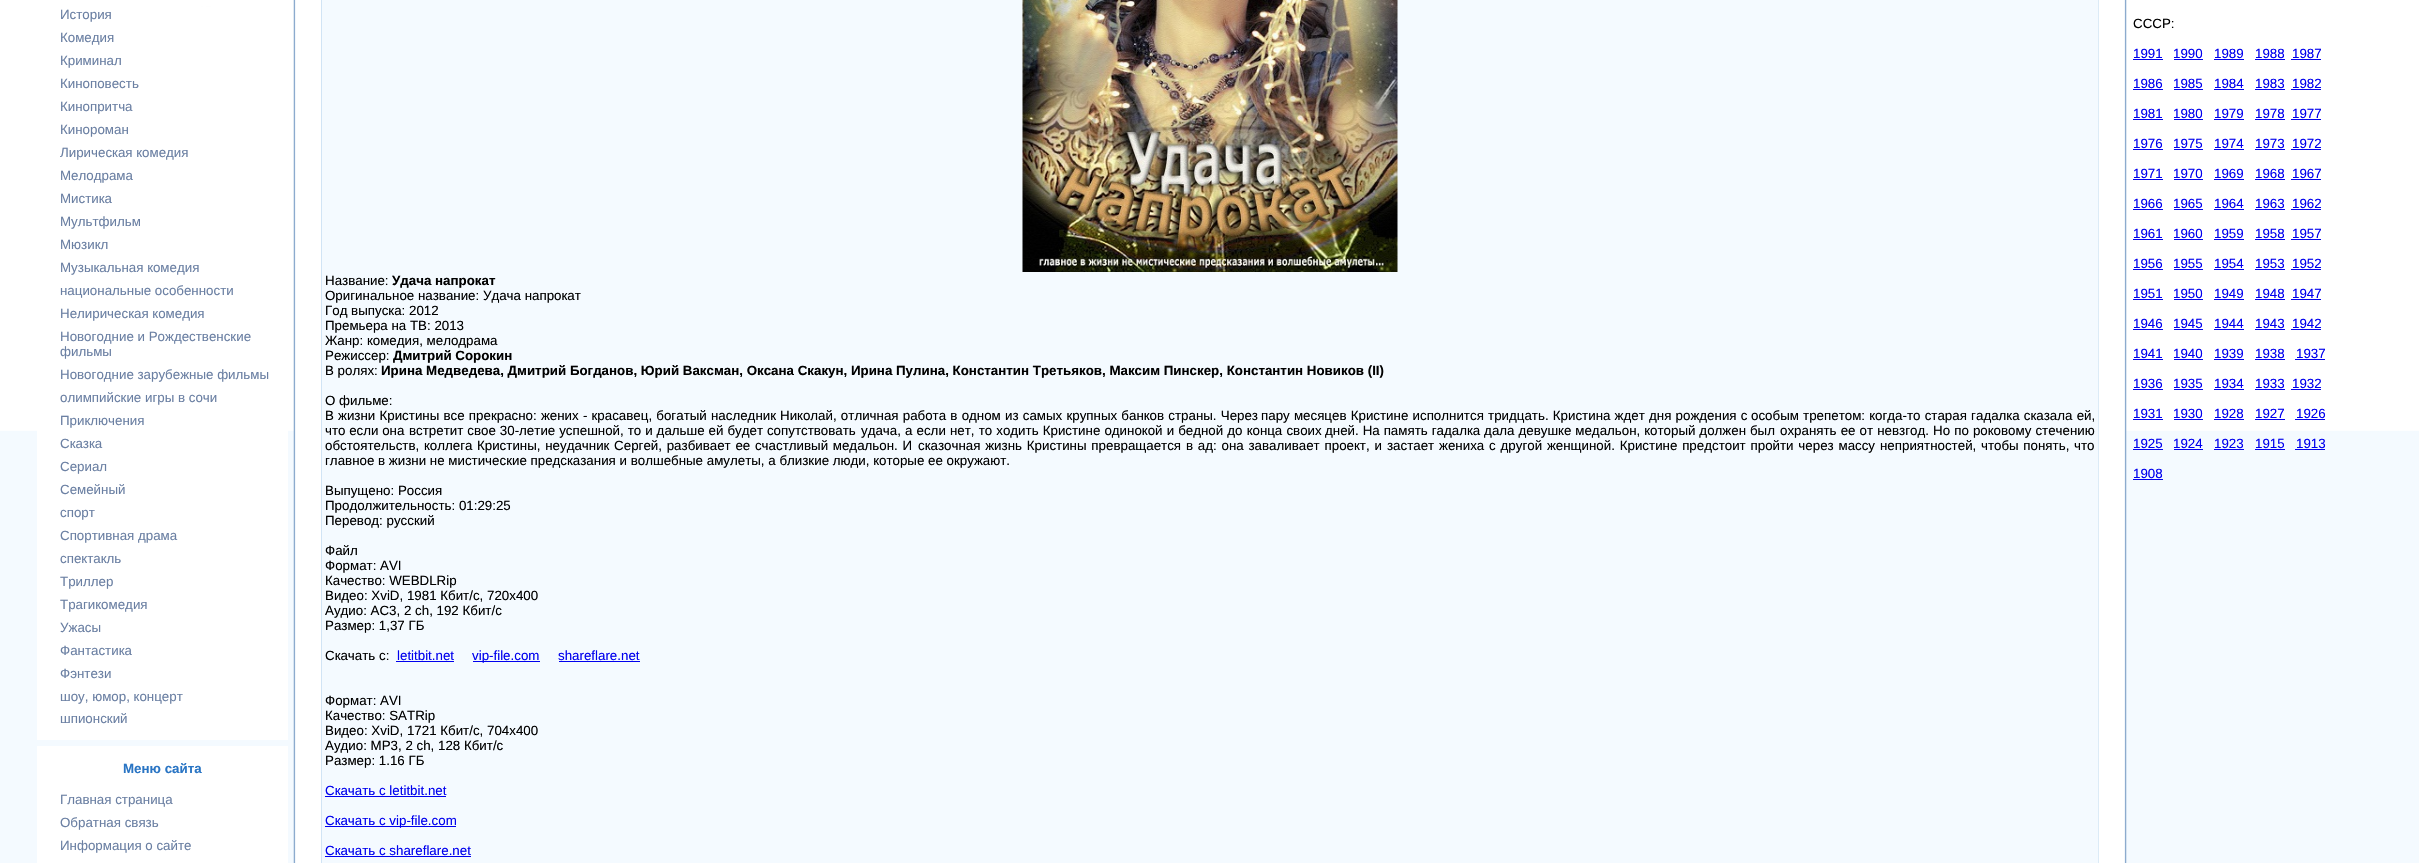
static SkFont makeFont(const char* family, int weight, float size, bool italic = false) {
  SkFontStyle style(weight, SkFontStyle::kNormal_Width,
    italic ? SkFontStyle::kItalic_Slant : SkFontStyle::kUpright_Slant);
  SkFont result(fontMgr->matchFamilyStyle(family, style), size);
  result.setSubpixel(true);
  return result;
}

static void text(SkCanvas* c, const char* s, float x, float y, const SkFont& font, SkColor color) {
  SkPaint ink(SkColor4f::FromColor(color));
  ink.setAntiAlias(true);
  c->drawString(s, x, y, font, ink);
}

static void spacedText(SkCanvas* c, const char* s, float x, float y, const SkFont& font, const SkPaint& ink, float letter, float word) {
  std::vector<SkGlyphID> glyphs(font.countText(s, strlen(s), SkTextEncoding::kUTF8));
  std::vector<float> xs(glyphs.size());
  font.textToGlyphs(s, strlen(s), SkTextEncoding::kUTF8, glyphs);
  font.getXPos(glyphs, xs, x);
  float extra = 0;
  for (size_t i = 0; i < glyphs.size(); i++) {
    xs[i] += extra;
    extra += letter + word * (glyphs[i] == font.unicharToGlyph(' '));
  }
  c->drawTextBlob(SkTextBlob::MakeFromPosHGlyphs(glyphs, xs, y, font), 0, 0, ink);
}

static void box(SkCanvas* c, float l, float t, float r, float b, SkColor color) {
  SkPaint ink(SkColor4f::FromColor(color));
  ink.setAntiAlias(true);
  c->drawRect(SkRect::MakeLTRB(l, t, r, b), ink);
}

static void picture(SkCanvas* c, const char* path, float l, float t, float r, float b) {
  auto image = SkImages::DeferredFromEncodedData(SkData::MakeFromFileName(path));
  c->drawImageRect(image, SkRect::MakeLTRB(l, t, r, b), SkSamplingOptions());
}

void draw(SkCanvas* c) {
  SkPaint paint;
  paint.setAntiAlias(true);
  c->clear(0xfff4faff);
  picture(c, "img_01.png", 2126, 0, 2419, 431);
  picture(c, "img_02.png", 0, 0, 294, 431);
  box(c, 37, 7, 288, 740, 0xffffffff);
  SkFont face1 = makeFont("Liberation Sans", 400, 13.33f);
  text(c, "История", 60, 19, face1, 0xff6b80a3);
  text(c, "Комедия", 60, 42, face1, 0xff6b80a3);
  text(c, "Криминал", 60, 65, face1, 0xff6b80a3);
  text(c, "Киноповесть", 60, 88, face1, 0xff6b80a3);
  text(c, "Кинопритча", 60, 111, face1, 0xff6b80a3);
  text(c, "Кинороман", 60, 134, face1, 0xff6b80a3);
  text(c, "Лирическая комедия", 60, 157, face1, 0xff6b80a3);
  text(c, "Мелодрама", 60, 180, face1, 0xff6b80a3);
  text(c, "Мистика", 60, 203, face1, 0xff6b80a3);
  text(c, "Мультфильм", 60, 226, face1, 0xff6b80a3);
  text(c, "Мюзикл", 60, 249, face1, 0xff6b80a3);
  text(c, "Музыкальная комедия", 60, 272, face1, 0xff6b80a3);
  text(c, "национальные особенности", 60, 295, face1, 0xff6b80a3);
  text(c, "Нелирическая комедия", 60, 318, face1, 0xff6b80a3);
  text(c, "Новогодние и Рождественские", 60, 341, face1, 0xff6b80a3);
  text(c, "фильмы", 60, 356, face1, 0xff6b80a3);
  text(c, "Новогодние зарубежные фильмы", 60, 379, face1, 0xff6b80a3);
  text(c, "олимпийские игры в сочи", 60, 402, face1, 0xff6b80a3);
  text(c, "Приключения", 60, 425, face1, 0xff6b80a3);
  text(c, "Сказка", 60, 448, face1, 0xff6b80a3);
  text(c, "Сериал", 60, 471, face1, 0xff6b80a3);
  text(c, "Семейный", 60, 494, face1, 0xff6b80a3);
  text(c, "спорт", 60, 517, face1, 0xff6b80a3);
  text(c, "Спортивная драма", 60, 540, face1, 0xff6b80a3);
  text(c, "спектакль", 60, 563, face1, 0xff6b80a3);
  text(c, "Триллер", 60, 586, face1, 0xff6b80a3);
  text(c, "Трагикомедия", 60, 609, face1, 0xff6b80a3);
  text(c, "Ужасы", 60, 632, face1, 0xff6b80a3);
  text(c, "Фантастика", 60, 655, face1, 0xff6b80a3);
  text(c, "Фэнтези", 60, 678, face1, 0xff6b80a3);
  text(c, "шоу, юмор, концерт", 60, 701, face1, 0xff6b80a3);
  text(c, "шпионский", 60, 723, face1, 0xff6b80a3);
  box(c, 37, 746, 288, 863, 0xffffffff);
  SkFont face2 = makeFont("Liberation Sans", 700, 13.33f);
  text(c, "Меню сайта", 123, 773, face2, 0xff2a75c4);
  text(c, "Главная страница", 60, 804, face1, 0xff6b80a3);
  text(c, "Обратная связь", 60, 827, face1, 0xff6b80a3);
  text(c, "Информация о сайте", 60, 850, face1, 0xff6b80a3);
  picture(c, "img_03.png", 293, 0, 321, 863);
  paint.setStyle(SkPaint::kStroke_Style);
  paint.setStrokeWidth(1);
  paint.setColor(0xffd1e4f5);
  c->drawRect(SkRect::MakeLTRB(321.5f, -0.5f, 2098.5f, 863.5f), paint);
  picture(c, "img_04.png", 1022, 0, 1398, 272);
  text(c, "Название:", 325, 285, face1, 0xff000000);
  text(c, "Удача напрокат", 392, 285, face2, 0xff000000);
  text(c, "Оригинальное название: Удача напрокат", 325, 300, face1, 0xff000000);
  text(c, "Год выпуска: 2012", 325, 315, face1, 0xff000000);
  text(c, "Премьера на ТВ: 2013", 325, 330, face1, 0xff000000);
  text(c, "Жанр: комедия, мелодрама", 325, 345, face1, 0xff000000);
  text(c, "Режиссер:", 325, 360, face1, 0xff000000);
  text(c, "Дмитрий Сорокин", 393, 360, face2, 0xff000000);
  text(c, "В ролях:", 325, 375, face1, 0xff000000);
  text(c, "Ирина Медведева, Дмитрий Богданов, Юрий Ваксман, Оксана Скакун, Ирина Пулина, Константин Третьяков, Максим Пинскер, Константин Новиков (II)", 381, 375, face2, 0xff000000);
  text(c, "О фильме:", 325, 405, face1, 0xff000000);
  text(c, "В", 325, 420, face1, 0xff000000);
  paint.setStyle(SkPaint::kFill_Style);
  paint.setColor(0xff000000);
  spacedText(c, "жизни Кристины все прекрасно: жених - красавец, богатый наследник", 338, 420, face1, paint, 0, 0.5f);
  spacedText(c, "Николай, отличная работа в одном из самых крупных банков страны. Через", 780, 420, face1, paint, 0, 0.5f);
  spacedText(c, "пару месяцев Кристине исполнится тридцать. Кристина ждет дня рождения с", 1261, 420, face1, paint, 0, 0.5f);
  spacedText(c, "особым трепетом: когда-то старая гадалка сказала ей,", 1751, 420, face1, paint, 0, 0.5f);
  text(c, "что если она", 325, 435, face1, 0xff000000);
  spacedText(c, "встретит свое 30-летие успешной, то и дальше ей будет сопутствовать", 409, 435, face1, paint, 0, 0.25f);
  spacedText(c, "удача, а если нет, то ходить Кристине одинокой и бедной до конца своих", 861, 435, face1, paint, 0, 0.4f);
  spacedText(c, "дней. На память гадалка дала девушке медальон, который должен был", 1325, 435, face1, paint, 0, 0.25f);
  spacedText(c, "охранять ее от невзгод. Но по роковому стечению", 1780, 435, face1, paint, 0, 0.4f);
  spacedText(c, "обстоятельств, коллега", 325, 450, face1, paint, 0, 1);
  spacedText(c, "Кристины, неудачник Сергей, разбивает ее счастливый медальон. И", 477, 450, face1, paint, 0, 1);
  spacedText(c, "сказочная жизнь Кристины превращается в ад: она заваливает проект, и", 918, 450, face1, paint, 0, 1.1f);
  spacedText(c, "застает жениха с другой женщиной. Кристине предстоит пройти через массу", 1387, 450, face1, paint, 0, 1.1f);
  spacedText(c, "неприятностей, чтобы понять, что", 1880, 450, face1, paint, 0, 1);
  text(c, "главное в жизни не мистические предсказания и волшебные амулеты, а близкие люди, которые ее окружают.", 325, 465, face1, 0xff000000);
  text(c, "Выпущено: Россия", 325, 495, face1, 0xff000000);
  text(c, "Продолжительность: 01:29:25", 325, 510, face1, 0xff000000);
  text(c, "Перевод: русский", 325, 525, face1, 0xff000000);
  text(c, "Файл", 325, 555, face1, 0xff000000);
  text(c, "Формат: AVI", 325, 570, face1, 0xff000000);
  text(c, "Качество: WEBDLRip", 325, 585, face1, 0xff000000);
  text(c, "Видео: XviD, 1981 Кбит/с, 720x400", 325, 600, face1, 0xff000000);
  text(c, "Аудио: AC3, 2 ch, 192 Кбит/с", 325, 615, face1, 0xff000000);
  text(c, "Размер: 1,37 ГБ", 325, 630, face1, 0xff000000);
  text(c, "Скачать с:", 325, 660, face1, 0xff000000);
  text(c, "letitbit.net", 397, 660, face1, 0xff0000ee);
  box(c, 396, 661, 454, 662, 0xff0000ee);
  box(c, 473, 661, 540, 662, 0xff0000ee);
  text(c, "vip-file.com", 472, 660, face1, 0xff0000ee);
  text(c, "shareflare.net", 558, 660, face1, 0xff0000ee);
  box(c, 559, 661, 640, 662, 0xff0000ee);
  text(c, "Формат: AVI", 325, 705, face1, 0xff000000);
  text(c, "Качество: SATRip", 325, 720, face1, 0xff000000);
  text(c, "Видео: XviD, 1721 Кбит/с, 704x400", 325, 735, face1, 0xff000000);
  text(c, "Аудио: MP3, 2 ch, 128 Кбит/с", 325, 750, face1, 0xff000000);
  text(c, "Размер: 1.16 ГБ", 325, 765, face1, 0xff000000);
  text(c, "Скачать с letitbit.net", 325, 795, face1, 0xff0000ee);
  box(c, 325, 796, 446, 797, 0xff0000ee);
  box(c, 325, 826, 456, 827, 0xff0000ee);
  text(c, "Скачать с vip-file.com", 325, 825, face1, 0xff0000ee);
  text(c, "Скачать с shareflare.net", 325, 855, face1, 0xff0000ee);
  box(c, 325, 856, 471, 857, 0xff0000ee);
  picture(c, "img_05.png", 2098, 0, 2127, 863);
  text(c, "СССР:", 2133, 28, face1, 0xff000000);
  text(c, "1991", 2133, 58, face1, 0xff0000ee);
  box(c, 2133, 59, 2163, 60, 0xff0000ee);
  text(c, "1990", 2173, 58, face1, 0xff0000ee);
  box(c, 2174, 59, 2203, 60, 0xff0000ee);
  text(c, "1989", 2214, 58, face1, 0xff0000ee);
  box(c, 2214, 59, 2244, 60, 0xff0000ee);
  text(c, "1988", 2255, 58, face1, 0xff0000ee);
  box(c, 2255, 59, 2285, 60, 0xff0000ee);
  text(c, "1987", 2292, 58, face1, 0xff0000ee);
  box(c, 2291, 59, 2321, 60, 0xff0000ee);
  text(c, "1986", 2133, 88, face1, 0xff0000ee);
  box(c, 2133, 89, 2163, 90, 0xff0000ee);
  text(c, "1985", 2173, 88, face1, 0xff0000ee);
  box(c, 2174, 89, 2203, 90, 0xff0000ee);
  text(c, "1984", 2214, 88, face1, 0xff0000ee);
  box(c, 2214, 89, 2244, 90, 0xff0000ee);
  text(c, "1983", 2255, 88, face1, 0xff0000ee);
  box(c, 2255, 89, 2285, 90, 0xff0000ee);
  text(c, "1982", 2292, 88, face1, 0xff0000ee);
  box(c, 2291, 89, 2321, 90, 0xff0000ee);
  text(c, "1981", 2133, 118, face1, 0xff0000ee);
  box(c, 2133, 119, 2163, 120, 0xff0000ee);
  text(c, "1980", 2173, 118, face1, 0xff0000ee);
  box(c, 2174, 119, 2203, 120, 0xff0000ee);
  text(c, "1979", 2214, 118, face1, 0xff0000ee);
  box(c, 2214, 119, 2244, 120, 0xff0000ee);
  text(c, "1978", 2255, 118, face1, 0xff0000ee);
  box(c, 2255, 119, 2285, 120, 0xff0000ee);
  text(c, "1977", 2292, 118, face1, 0xff0000ee);
  box(c, 2291, 119, 2321, 120, 0xff0000ee);
  text(c, "1976", 2133, 148, face1, 0xff0000ee);
  box(c, 2133, 149, 2163, 150, 0xff0000ee);
  text(c, "1975", 2173, 148, face1, 0xff0000ee);
  box(c, 2174, 149, 2203, 150, 0xff0000ee);
  text(c, "1974", 2214, 148, face1, 0xff0000ee);
  box(c, 2214, 149, 2244, 150, 0xff0000ee);
  text(c, "1973", 2255, 148, face1, 0xff0000ee);
  box(c, 2255, 149, 2285, 150, 0xff0000ee);
  text(c, "1972", 2292, 148, face1, 0xff0000ee);
  box(c, 2291, 149, 2321, 150, 0xff0000ee);
  text(c, "1971", 2133, 178, face1, 0xff0000ee);
  box(c, 2133, 179, 2163, 180, 0xff0000ee);
  text(c, "1970", 2173, 178, face1, 0xff0000ee);
  box(c, 2174, 179, 2203, 180, 0xff0000ee);
  text(c, "1969", 2214, 178, face1, 0xff0000ee);
  box(c, 2214, 179, 2244, 180, 0xff0000ee);
  text(c, "1968", 2255, 178, face1, 0xff0000ee);
  box(c, 2255, 179, 2285, 180, 0xff0000ee);
  text(c, "1967", 2292, 178, face1, 0xff0000ee);
  box(c, 2291, 179, 2321, 180, 0xff0000ee);
  text(c, "1966", 2133, 208, face1, 0xff0000ee);
  box(c, 2133, 209, 2163, 210, 0xff0000ee);
  text(c, "1965", 2173, 208, face1, 0xff0000ee);
  box(c, 2174, 209, 2203, 210, 0xff0000ee);
  text(c, "1964", 2214, 208, face1, 0xff0000ee);
  box(c, 2214, 209, 2244, 210, 0xff0000ee);
  text(c, "1963", 2255, 208, face1, 0xff0000ee);
  box(c, 2255, 209, 2285, 210, 0xff0000ee);
  text(c, "1962", 2292, 208, face1, 0xff0000ee);
  box(c, 2291, 209, 2321, 210, 0xff0000ee);
  text(c, "1961", 2133, 238, face1, 0xff0000ee);
  box(c, 2133, 239, 2163, 240, 0xff0000ee);
  text(c, "1960", 2173, 238, face1, 0xff0000ee);
  box(c, 2174, 239, 2203, 240, 0xff0000ee);
  text(c, "1959", 2214, 238, face1, 0xff0000ee);
  box(c, 2214, 239, 2244, 240, 0xff0000ee);
  text(c, "1958", 2255, 238, face1, 0xff0000ee);
  box(c, 2255, 239, 2285, 240, 0xff0000ee);
  text(c, "1957", 2292, 238, face1, 0xff0000ee);
  box(c, 2291, 239, 2321, 240, 0xff0000ee);
  text(c, "1956", 2133, 268, face1, 0xff0000ee);
  box(c, 2133, 269, 2163, 270, 0xff0000ee);
  text(c, "1955", 2173, 268, face1, 0xff0000ee);
  box(c, 2174, 269, 2203, 270, 0xff0000ee);
  text(c, "1954", 2214, 268, face1, 0xff0000ee);
  box(c, 2214, 269, 2244, 270, 0xff0000ee);
  text(c, "1953", 2255, 268, face1, 0xff0000ee);
  box(c, 2255, 269, 2285, 270, 0xff0000ee);
  text(c, "1952", 2292, 268, face1, 0xff0000ee);
  box(c, 2291, 269, 2321, 270, 0xff0000ee);
  text(c, "1951", 2133, 298, face1, 0xff0000ee);
  box(c, 2133, 299, 2163, 300, 0xff0000ee);
  text(c, "1950", 2173, 298, face1, 0xff0000ee);
  box(c, 2174, 299, 2203, 300, 0xff0000ee);
  text(c, "1949", 2214, 298, face1, 0xff0000ee);
  box(c, 2214, 299, 2244, 300, 0xff0000ee);
  text(c, "1948", 2255, 298, face1, 0xff0000ee);
  box(c, 2255, 299, 2285, 300, 0xff0000ee);
  text(c, "1947", 2292, 298, face1, 0xff0000ee);
  box(c, 2291, 299, 2321, 300, 0xff0000ee);
  text(c, "1946", 2133, 328, face1, 0xff0000ee);
  box(c, 2133, 329, 2163, 330, 0xff0000ee);
  text(c, "1945", 2173, 328, face1, 0xff0000ee);
  box(c, 2174, 329, 2203, 330, 0xff0000ee);
  text(c, "1944", 2214, 328, face1, 0xff0000ee);
  box(c, 2214, 329, 2244, 330, 0xff0000ee);
  text(c, "1943", 2255, 328, face1, 0xff0000ee);
  box(c, 2255, 329, 2285, 330, 0xff0000ee);
  text(c, "1942", 2292, 328, face1, 0xff0000ee);
  box(c, 2291, 329, 2321, 330, 0xff0000ee);
  text(c, "1941", 2133, 358, face1, 0xff0000ee);
  box(c, 2133, 359, 2163, 360, 0xff0000ee);
  text(c, "1940", 2173, 358, face1, 0xff0000ee);
  box(c, 2174, 359, 2203, 360, 0xff0000ee);
  text(c, "1939", 2214, 358, face1, 0xff0000ee);
  box(c, 2214, 359, 2244, 360, 0xff0000ee);
  text(c, "1938", 2255, 358, face1, 0xff0000ee);
  box(c, 2255, 359, 2285, 360, 0xff0000ee);
  text(c, "1937", 2296, 358, face1, 0xff0000ee);
  box(c, 2295, 359, 2325, 360, 0xff0000ee);
  text(c, "1936", 2133, 388, face1, 0xff0000ee);
  box(c, 2133, 389, 2163, 390, 0xff0000ee);
  text(c, "1935", 2173, 388, face1, 0xff0000ee);
  box(c, 2174, 389, 2203, 390, 0xff0000ee);
  text(c, "1934", 2214, 388, face1, 0xff0000ee);
  box(c, 2214, 389, 2244, 390, 0xff0000ee);
  text(c, "1933", 2255, 388, face1, 0xff0000ee);
  box(c, 2255, 389, 2285, 390, 0xff0000ee);
  text(c, "1932", 2292, 388, face1, 0xff0000ee);
  box(c, 2291, 389, 2321, 390, 0xff0000ee);
  text(c, "1931", 2133, 418, face1, 0xff0000ee);
  box(c, 2133, 419, 2163, 420, 0xff0000ee);
  text(c, "1930", 2173, 418, face1, 0xff0000ee);
  box(c, 2174, 419, 2203, 420, 0xff0000ee);
  text(c, "1928", 2214, 418, face1, 0xff0000ee);
  box(c, 2214, 419, 2244, 420, 0xff0000ee);
  text(c, "1927", 2255, 418, face1, 0xff0000ee);
  box(c, 2255, 419, 2285, 420, 0xff0000ee);
  text(c, "1926", 2296, 418, face1, 0xff0000ee);
  box(c, 2295, 419, 2325, 420, 0xff0000ee);
  text(c, "1925", 2133, 448, face1, 0xff0000ee);
  box(c, 2133, 449, 2163, 450, 0xff0000ee);
  text(c, "1924", 2173, 448, face1, 0xff0000ee);
  box(c, 2174, 449, 2203, 450, 0xff0000ee);
  text(c, "1923", 2214, 448, face1, 0xff0000ee);
  box(c, 2214, 449, 2244, 450, 0xff0000ee);
  text(c, "1915", 2255, 448, face1, 0xff0000ee);
  box(c, 2255, 449, 2285, 450, 0xff0000ee);
  text(c, "1913", 2296, 448, face1, 0xff0000ee);
  box(c, 2295, 449, 2325, 450, 0xff0000ee);
  text(c, "1908", 2133, 478, face1, 0xff0000ee);
  box(c, 2133, 479, 2163, 480, 0xff0000ee);
}
